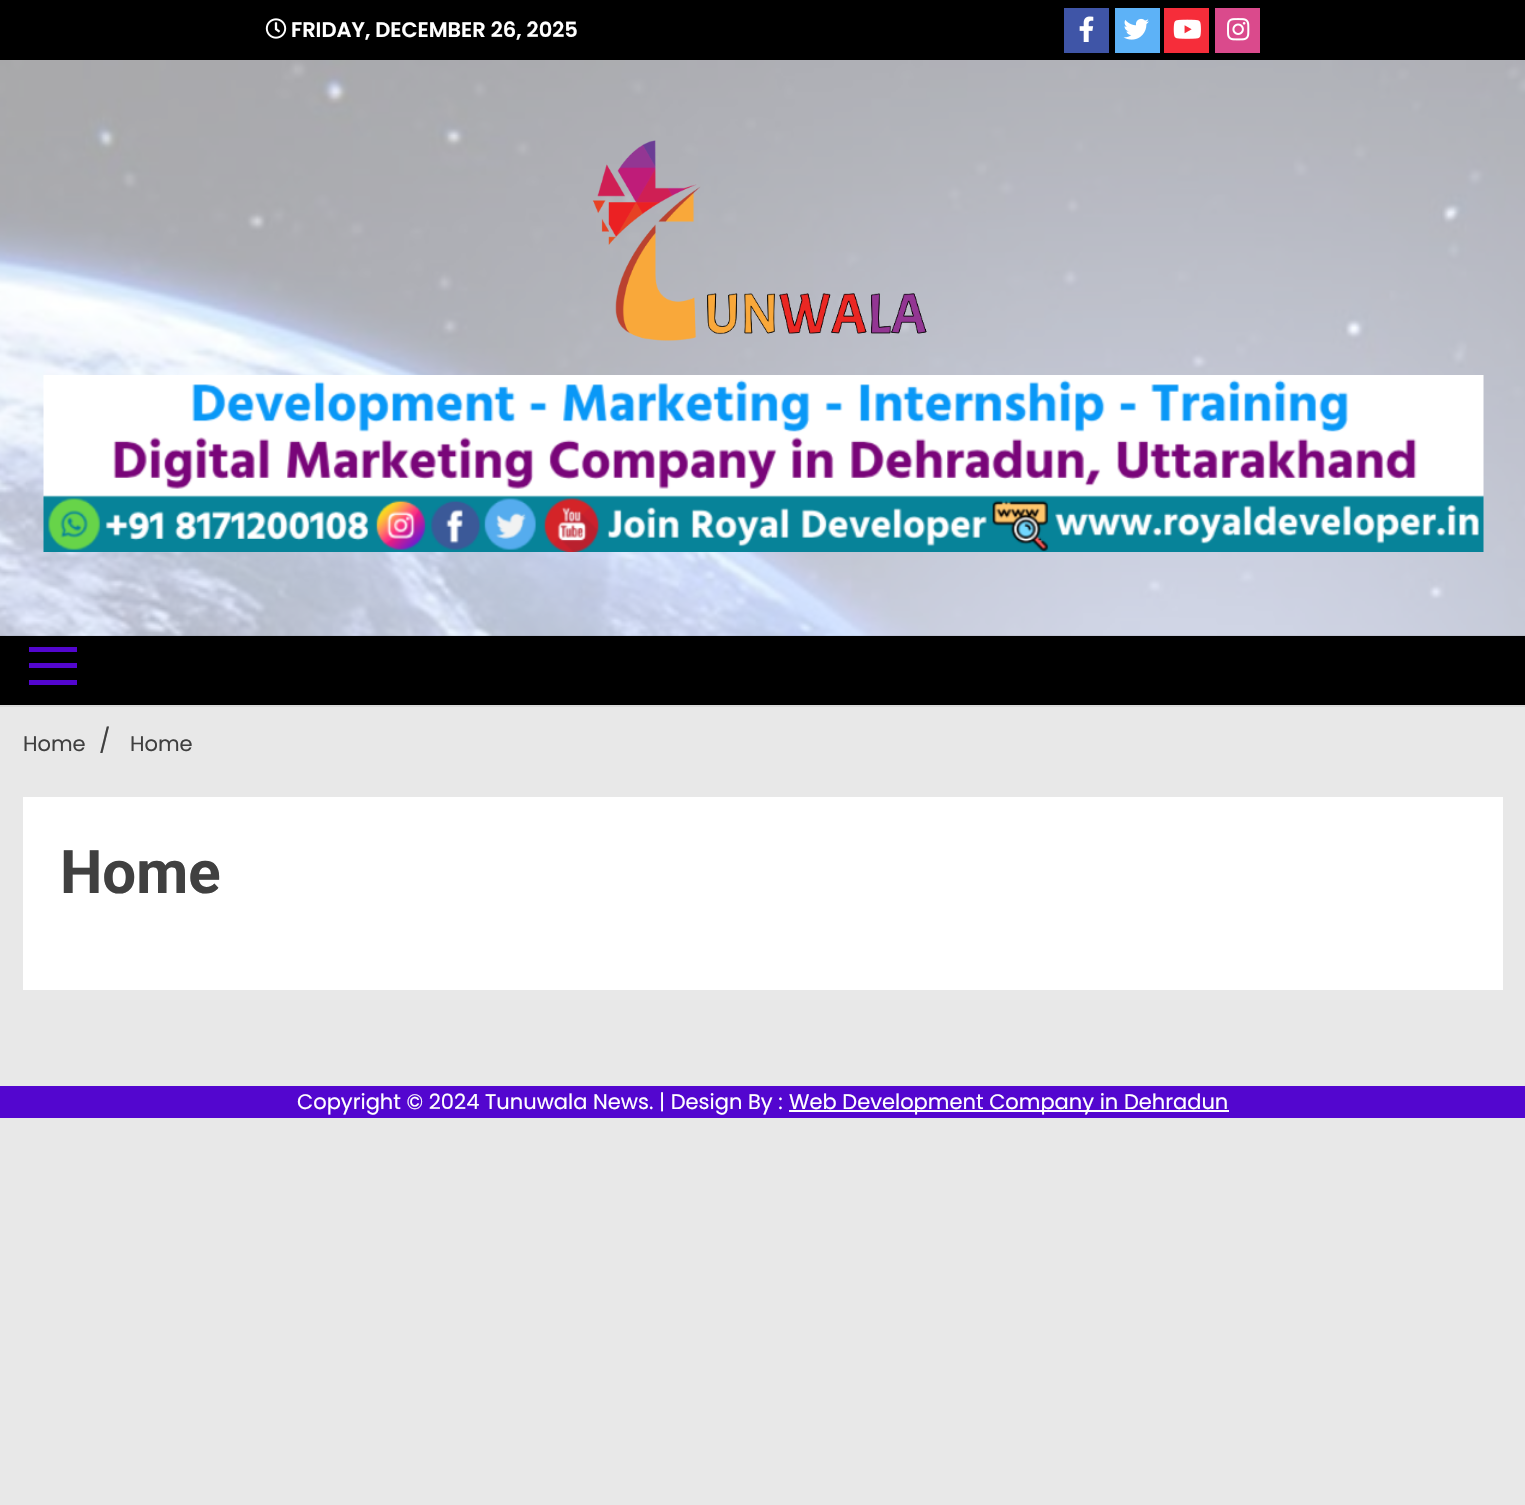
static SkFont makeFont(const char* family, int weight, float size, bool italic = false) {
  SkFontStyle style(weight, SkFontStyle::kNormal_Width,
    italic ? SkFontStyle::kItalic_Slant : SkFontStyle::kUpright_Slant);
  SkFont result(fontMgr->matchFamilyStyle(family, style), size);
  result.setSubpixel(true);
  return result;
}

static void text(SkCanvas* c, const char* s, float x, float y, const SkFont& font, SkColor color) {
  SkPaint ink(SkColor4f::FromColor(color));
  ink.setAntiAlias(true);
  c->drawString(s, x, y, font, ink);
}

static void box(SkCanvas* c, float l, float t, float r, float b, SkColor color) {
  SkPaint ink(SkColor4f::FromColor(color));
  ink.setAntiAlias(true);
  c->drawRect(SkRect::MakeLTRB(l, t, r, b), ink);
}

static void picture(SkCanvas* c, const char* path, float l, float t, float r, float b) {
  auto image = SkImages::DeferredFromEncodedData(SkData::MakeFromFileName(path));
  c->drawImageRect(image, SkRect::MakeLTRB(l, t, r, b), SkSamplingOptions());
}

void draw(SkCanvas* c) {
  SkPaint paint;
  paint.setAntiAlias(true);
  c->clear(0xffe8e8e8);
  box(c, 0, 0, 1525, 60, 0xff000000);
  picture(c, "img_01.png", 265, 18, 287, 39);
  SkFont face1 = makeFont("Poppins", 600, 21);
  text(c, "FRIDAY, DECEMBER 26, 2025", 291, 37, face1, 0xffffffff);
  box(c, 1064, 8, 1109, 53, 0xff3f55a7);
  picture(c, "img_02.png", 1079, 16, 1094, 42);
  box(c, 1115, 8, 1160, 53, 0xff5db2f7);
  picture(c, "img_03.png", 1123, 18, 1149, 40);
  box(c, 1164, 8, 1209, 53, 0xfff62d3a);
  picture(c, "img_04.png", 1173, 19, 1201, 39);
  box(c, 1215, 8, 1260, 53, 0xffda4a8c);
  picture(c, "img_05.png", 1227, 18, 1250, 41);
  box(c, 0, 60, 1525, 636, 0xffffffff);
  picture(c, "img_06.png", 0, 60, 1525, 636);
  picture(c, "img_07.png", 592, 140, 927, 341);
  picture(c, "img_08.png", 43, 375, 1484, 552);
  paint.setStyle(SkPaint::kStroke_Style);
  paint.setStrokeWidth(2);
  paint.setColor(0x0f000000);
  c->drawRect(SkRect::MakeLTRB(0, 636, 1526, 706), paint);
  box(c, 0, 636, 1525, 705, 0xff000000);
  box(c, 29, 647, 77, 652, 0xff5306cf);
  box(c, 29, 663, 77, 668, 0xff5306cf);
  box(c, 29, 680, 77, 685, 0xff5306cf);
  SkFont face2 = makeFont("Poppins", 400, 21);
  text(c, "Home", 23, 751, face2, 0xff404040);
  SkFont face3 = makeFont("Poppins", 400, 24);
  text(c, "/", 99, 749, face3, 0xff404040);
  text(c, "Home", 130, 751, face2, 0xff404040);
  box(c, 23, 797, 1503, 990, 0xffffffff);
  SkFont face4 = makeFont("Roboto", 700, 60);
  text(c, "Home", 60, 893, face4, 0xff404040);
  box(c, 0, 1086, 1525, 1118, 0xff5306cf);
  text(c, "Copyright © 2024 Tunuwala News. | Design By :", 297, 1109, face2, 0xffffffff);
  box(c, 789, 1110, 1229, 1112, 0xffffffff);
  text(c, "Web Development Company in Dehradun", 789, 1109, face2, 0xffffffff);
}
